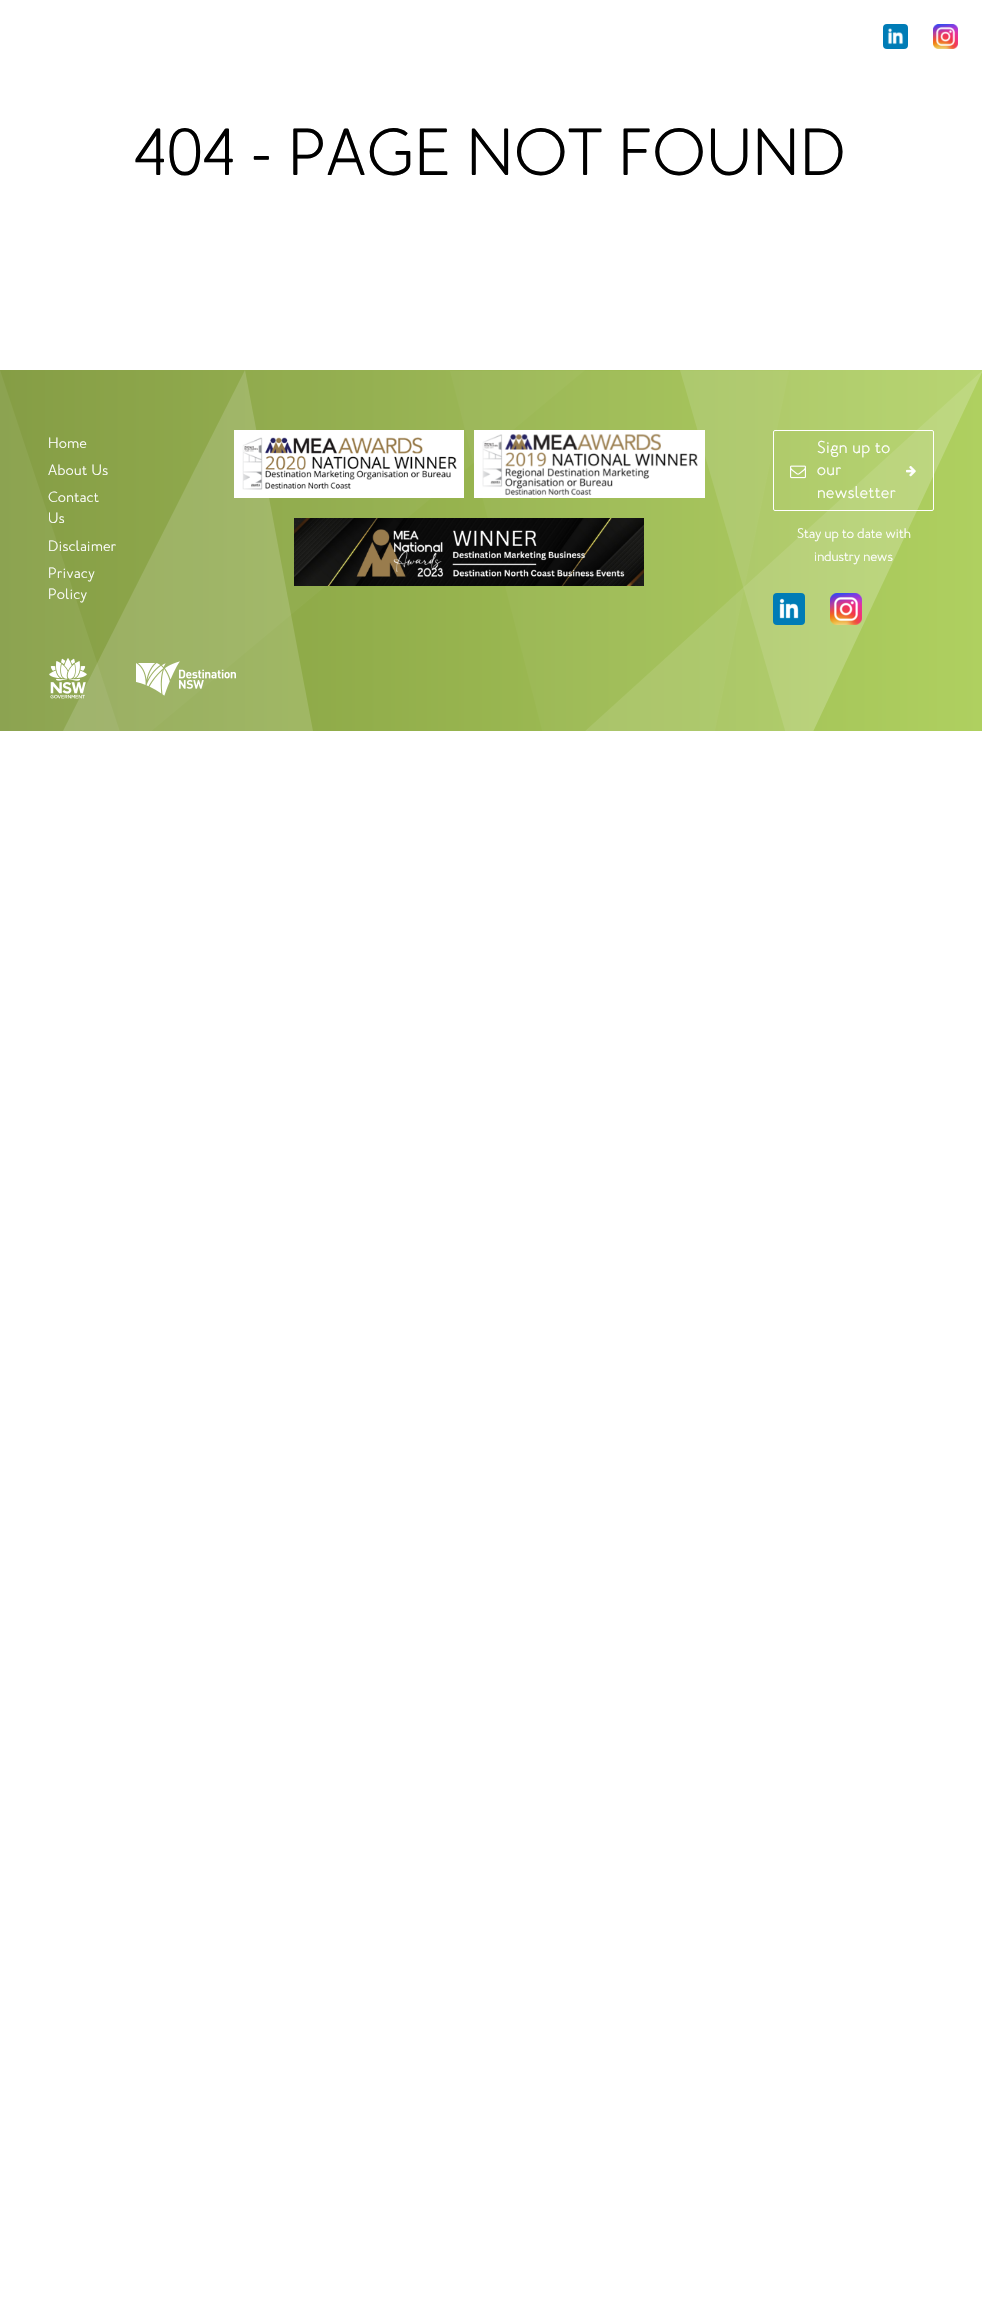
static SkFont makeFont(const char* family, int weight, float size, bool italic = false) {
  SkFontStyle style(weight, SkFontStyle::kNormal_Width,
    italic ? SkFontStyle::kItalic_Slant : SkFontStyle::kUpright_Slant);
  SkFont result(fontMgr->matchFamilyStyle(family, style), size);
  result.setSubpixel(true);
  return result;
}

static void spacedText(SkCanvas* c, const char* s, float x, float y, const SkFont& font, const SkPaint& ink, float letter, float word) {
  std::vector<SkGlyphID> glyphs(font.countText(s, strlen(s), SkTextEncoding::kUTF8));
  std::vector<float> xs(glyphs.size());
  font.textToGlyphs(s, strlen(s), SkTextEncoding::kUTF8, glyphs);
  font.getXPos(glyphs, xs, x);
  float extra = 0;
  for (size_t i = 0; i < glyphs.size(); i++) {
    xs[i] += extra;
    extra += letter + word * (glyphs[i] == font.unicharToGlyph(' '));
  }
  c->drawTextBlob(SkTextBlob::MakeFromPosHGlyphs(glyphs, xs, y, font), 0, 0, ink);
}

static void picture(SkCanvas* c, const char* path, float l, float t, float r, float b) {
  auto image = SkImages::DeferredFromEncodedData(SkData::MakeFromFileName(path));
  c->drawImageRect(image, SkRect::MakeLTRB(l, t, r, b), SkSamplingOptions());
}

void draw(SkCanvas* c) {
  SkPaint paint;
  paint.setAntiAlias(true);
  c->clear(0xffffffff);
  picture(c, "img_01.png", 883, 24, 908, 49);
  picture(c, "img_02.png", 933, 24, 958, 49);
  SkFont face1 = makeFont("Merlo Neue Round", 300, 62);
  paint.setColor(0xff000000);
  spacedText(c, "404 - PAGE NOT FOUND", 135, 175, face1, paint, 0.5f, 0);
  {
    const SkColor colors[] = {0xff819a3f, 0xffafd060};
    const float stops[] = {0, 1};
    const SkPoint ends[] = {{0, 551}, {982, 551}};
    paint.setShader(SkGradientShader::MakeLinear(ends, colors, stops, 2, SkTileMode::kClamp));
    paint.setAlpha(255);
  }
  c->drawRect(SkRect::MakeLTRB(0, 370, 982, 731), paint);
  paint.setShader(nullptr);
  paint.setColor(0x0ffffffe);
  c->drawPath(SkPathBuilder(SkPathFillType::kEvenOdd).moveTo(0, 370).lineTo(0, 856).lineTo(185, 928).close().detach(), paint);
  c->save();
  c->clipRect(SkRect::MakeLTRB(0, 370, 982, 731));
  paint.setColor(0x26fffffe);
  c->drawPath(SkPathBuilder(SkPathFillType::kEvenOdd).moveTo(0, 856).lineTo(363, 997).lineTo(245, 370).close().detach(), paint);
  c->restore();
  paint.setColor(0x08fffffe);
  c->drawPath(SkPathBuilder(SkPathFillType::kEvenOdd).moveTo(0, 370).lineTo(0, 857).lineTo(585, 370).close().detach(), paint);
  c->save();
  c->clipRect(SkRect::MakeLTRB(0, 370, 982, 731));
  paint.setColor(0x1cfffffe);
  c->drawPath(SkPathBuilder(SkPathFillType::kEvenOdd).moveTo(796, 768).lineTo(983, 370).lineTo(680, 370).close().detach(), paint);
  paint.setColor(0x1afffffe);
  c->drawPath(SkPathBuilder(SkPathFillType::kEvenOdd).moveTo(313, 978).lineTo(638, 1104).lineTo(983, 370).close().detach(), paint);
  c->restore();
  paint.setColor(0x08fffffe);
  c->drawPath(SkPathBuilder(SkPathFillType::kEvenOdd).moveTo(638, 1105).lineTo(789, 371).lineTo(450, 371).close().detach(), paint);
  SkFont face2 = makeFont("Merlo Neue Round", 300, 14);
  paint.setColor(0xffffffff);
  spacedText(c, "Home", 48, 448, face2, paint, 0.5f, 0);
  spacedText(c, "About Us", 48, 475, face2, paint, 0.5f, 0);
  spacedText(c, "Contact", 48, 502, face2, paint, 0.5f, 0);
  spacedText(c, "Us", 48, 523, face2, paint, 0.5f, 0);
  spacedText(c, "Disclaimer", 48, 551, face2, paint, 0.5f, 0);
  spacedText(c, "Privacy", 48, 578, face2, paint, 0.5f, 0);
  spacedText(c, "Policy", 48, 599, face2, paint, 0.5f, 0);
  picture(c, "img_03.png", 234, 430, 464, 498);
  picture(c, "img_04.png", 474, 430, 705, 498);
  picture(c, "img_05.png", 294, 518, 644, 586);
  paint.setStyle(SkPaint::kStroke_Style);
  paint.setStrokeWidth(1);
  c->drawRoundRect(SkRect::MakeLTRB(773.5f, 430.5f, 933.5f, 510.5f), 1.5f, 1.5f, paint);
  SkFont face3 = makeFont("Merlo Neue Round", 300, 16);
  paint.setStyle(SkPaint::kFill_Style);
  spacedText(c, "Sign up to", 817, 453, face3, paint, 0.5f, 0);
  picture(c, "img_06.png", 790, 465, 806, 479);
  spacedText(c, "our", 817, 475, face3, paint, 0.5f, 0);
  picture(c, "img_07.png", 906, 466, 916, 477);
  spacedText(c, "newsletter", 817, 498, face3, paint, 0.5f, 0);
  SkFont face4 = makeFont("Merlo Neue Round", 300, 13);
  spacedText(c, "Stay up to date with", 797, 538, face4, paint, 0.1f, 0);
  spacedText(c, "industry news", 814, 561, face4, paint, 0.1f, 0);
  picture(c, "img_08.png", 773, 593, 805, 625);
  picture(c, "img_09.png", 830, 593, 862, 625);
  picture(c, "img_10.png", 49, 658, 87, 699);
  picture(c, "img_11.png", 136, 661, 236, 696);
}
